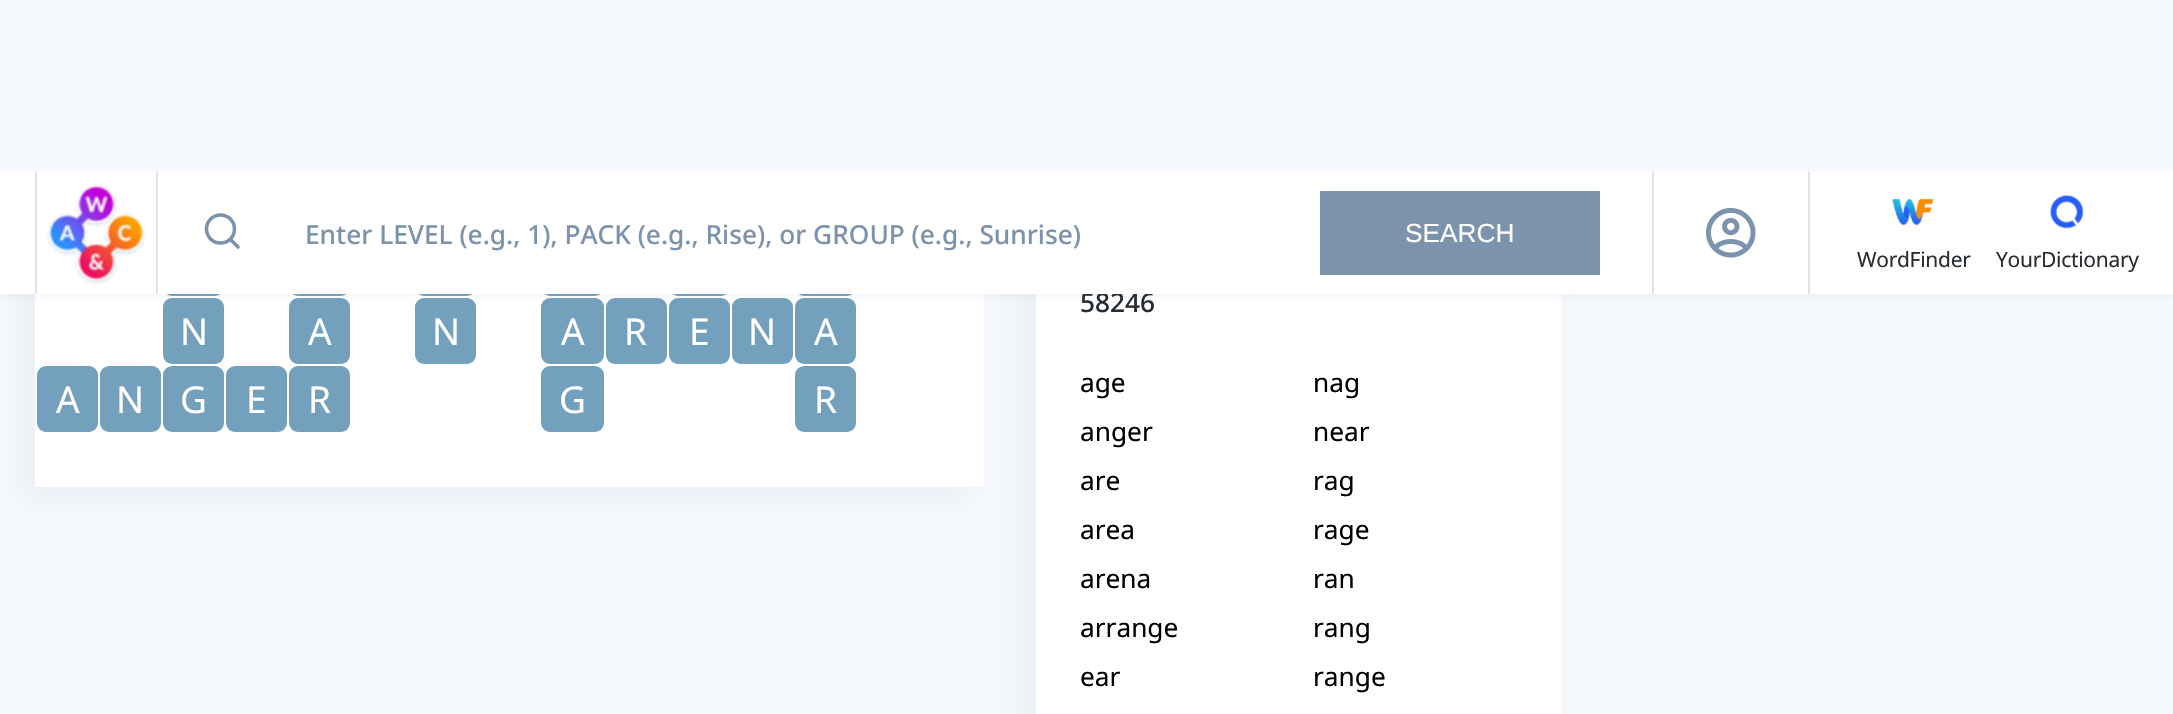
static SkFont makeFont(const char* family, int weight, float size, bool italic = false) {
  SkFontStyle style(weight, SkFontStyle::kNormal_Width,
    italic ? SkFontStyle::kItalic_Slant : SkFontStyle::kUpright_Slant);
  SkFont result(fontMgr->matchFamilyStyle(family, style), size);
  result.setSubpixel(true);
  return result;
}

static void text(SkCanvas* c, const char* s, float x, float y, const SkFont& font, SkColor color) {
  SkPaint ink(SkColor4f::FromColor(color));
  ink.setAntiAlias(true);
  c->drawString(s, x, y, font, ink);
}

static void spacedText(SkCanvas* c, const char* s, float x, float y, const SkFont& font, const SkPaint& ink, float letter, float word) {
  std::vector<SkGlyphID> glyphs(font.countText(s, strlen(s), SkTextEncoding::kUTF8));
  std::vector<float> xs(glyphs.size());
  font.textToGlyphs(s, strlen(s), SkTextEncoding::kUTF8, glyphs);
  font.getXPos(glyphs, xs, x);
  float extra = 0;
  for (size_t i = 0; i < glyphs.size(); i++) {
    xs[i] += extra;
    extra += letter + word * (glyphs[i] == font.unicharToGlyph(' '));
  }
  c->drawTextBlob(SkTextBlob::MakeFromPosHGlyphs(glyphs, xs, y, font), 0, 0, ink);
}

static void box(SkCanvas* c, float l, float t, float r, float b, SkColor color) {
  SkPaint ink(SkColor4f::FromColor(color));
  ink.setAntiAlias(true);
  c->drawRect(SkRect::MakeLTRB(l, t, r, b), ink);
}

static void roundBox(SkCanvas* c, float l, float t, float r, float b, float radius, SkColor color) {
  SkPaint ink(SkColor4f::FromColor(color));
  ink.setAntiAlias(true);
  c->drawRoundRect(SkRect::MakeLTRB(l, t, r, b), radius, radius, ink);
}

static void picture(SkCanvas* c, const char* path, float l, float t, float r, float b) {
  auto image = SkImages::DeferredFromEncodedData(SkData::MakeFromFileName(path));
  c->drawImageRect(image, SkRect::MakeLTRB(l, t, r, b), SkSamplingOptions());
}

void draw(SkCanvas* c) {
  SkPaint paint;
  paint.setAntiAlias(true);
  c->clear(0xfff6f9fd);
  paint.setColor(0x1a7c93ad);
  paint.setMaskFilter(SkMaskFilter::MakeBlur(kNormal_SkBlurStyle, 14));
  c->drawRect(SkRect::MakeLTRB(21, -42, 970, 501), paint);
  paint.setMaskFilter(nullptr);
  box(c, 35, 294, 984, 487, 0xffffffff);
  roundBox(c, 163, 229, 224, 296, 9, 0xff73a0bd);
  roundBox(c, 289, 229, 350, 296, 9, 0xff73a0bd);
  roundBox(c, 415, 229, 476, 296, 9, 0xff73a0bd);
  roundBox(c, 541, 229, 604, 296, 9, 0xff73a0bd);
  roundBox(c, 669, 229, 730, 296, 9, 0xff73a0bd);
  roundBox(c, 795, 229, 856, 296, 9, 0xff73a0bd);
  roundBox(c, 163, 298, 224, 364, 9, 0xff73a0bd);
  roundBox(c, 289, 298, 350, 364, 9, 0xff73a0bd);
  roundBox(c, 415, 298, 476, 364, 9, 0xff73a0bd);
  roundBox(c, 541, 298, 604, 364, 9, 0xff73a0bd);
  roundBox(c, 606, 298, 667, 364, 9, 0xff73a0bd);
  roundBox(c, 669, 298, 730, 364, 9, 0xff73a0bd);
  roundBox(c, 732, 298, 793, 364, 9, 0xff73a0bd);
  roundBox(c, 795, 298, 856, 364, 9, 0xff73a0bd);
  paint.setMaskFilter(SkMaskFilter::MakeBlur(kNormal_SkBlurStyle, 17.5f));
  c->drawRect(SkRect::MakeLTRB(1019, 231, 1544, 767), paint);
  paint.setMaskFilter(nullptr);
  box(c, 1036, 294, 1561, 714, 0xffffffff);
  paint.setMaskFilter(SkMaskFilter::MakeBlur(kNormal_SkBlurStyle, 4.5f));
  c->drawRect(SkRect::MakeLTRB(0, 173, 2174, 296), paint);
  paint.setMaskFilter(nullptr);
  box(c, 0, 0, 2173, 172, 0xfff6f9fd);
  SkFont face1 = makeFont("Noto Sans", 500, 26.25f);
  text(c, "58246", 1080, 312, face1, 0xff282d32);
  box(c, 0, 172, 2173, 294, 0xffffffff);
  box(c, 156, 172, 158, 294, 0xffdee5e9);
  box(c, 35, 172, 37, 294, 0xffdee5e9);
  picture(c, "img_01.png", 46, 184, 146, 285);
  paint.setStyle(SkPaint::kStroke_Style);
  paint.setStrokeWidth(3.5f);
  paint.setColor(0xff7c93ad);
  c->drawCircle(220.5f, 229, 14, paint);
  paint.setStrokeCap(SkPaint::kRound_Cap);
  paint.setStrokeJoin(SkPaint::kRound_Join);
  c->drawPath(SkPathBuilder().moveTo(238, 247).lineTo(231, 240).detach(), paint);
  text(c, "Enter LEVEL (e.g., 1), PACK (e.g., Rise), or GROUP (e.g., Sunrise)", 305, 244, face1, 0xff7c93ad);
  box(c, 1320, 191, 1600, 275, 0xff7c93ad);
  SkFont face2 = makeFont("Liberation Sans", 400, 26.25f);
  text(c, "SEARCH", 1405, 242, face2, 0xffffffff);
  box(c, 1652, 172, 1654, 294, 0xffdee5e9);
  picture(c, "img_02.png", 1706, 208, 1756, 258);
  box(c, 1808, 172, 1810, 294, 0xffdee5e9);
  picture(c, "img_03.png", 1891, 198, 1934, 226);
  SkFont face3 = makeFont("Noto Sans", 400, 21);
  paint.setStyle(SkPaint::kFill_Style);
  paint.setColor(0xff282d32);
  spacedText(c, "WordFinder", 1857, 267, face3, paint, -0.3f, 0);
  picture(c, "img_04.png", 2049, 195, 2084, 229);
  spacedText(c, "YourDictionary", 1996, 267, face3, paint, -0.3f, 0);
  SkFont face4 = makeFont("Noto Sans", 400, 37);
  text(c, "N", 180, 345, face4, 0xffffffff);
  text(c, "A", 308, 345, face4, 0xffffffff);
  text(c, "N", 432, 345, face4, 0xffffffff);
  text(c, "A", 561, 345, face4, 0xffffffff);
  text(c, "R", 624, 345, face4, 0xffffffff);
  text(c, "E", 689, 345, face4, 0xffffffff);
  text(c, "N", 748, 345, face4, 0xffffffff);
  text(c, "A", 814, 345, face4, 0xffffffff);
  roundBox(c, 37, 366, 98, 432, 9, 0xff73a0bd);
  text(c, "A", 56, 413, face4, 0xffffffff);
  roundBox(c, 100, 366, 161, 432, 9, 0xff73a0bd);
  text(c, "N", 116, 413, face4, 0xffffffff);
  roundBox(c, 163, 366, 224, 432, 9, 0xff73a0bd);
  text(c, "G", 180, 413, face4, 0xffffffff);
  roundBox(c, 226, 366, 287, 432, 9, 0xff73a0bd);
  text(c, "E", 246, 413, face4, 0xffffffff);
  roundBox(c, 289, 366, 350, 432, 9, 0xff73a0bd);
  text(c, "R", 308, 413, face4, 0xffffffff);
  roundBox(c, 541, 366, 604, 432, 9, 0xff73a0bd);
  text(c, "G", 559, 413, face4, 0xffffffff);
  roundBox(c, 795, 366, 856, 432, 9, 0xff73a0bd);
  text(c, "R", 814, 413, face4, 0xffffffff);
  SkFont face5 = makeFont("Noto Sans", 400, 26.25f);
  text(c, "age", 1080, 392, face5, 0xff000000);
  text(c, "nag", 1313, 392, face5, 0xff000000);
  text(c, "anger", 1080, 441, face5, 0xff000000);
  text(c, "near", 1313, 441, face5, 0xff000000);
  text(c, "are", 1080, 490, face5, 0xff000000);
  text(c, "rag", 1313, 490, face5, 0xff000000);
  text(c, "area", 1080, 539, face5, 0xff000000);
  text(c, "rage", 1313, 539, face5, 0xff000000);
  text(c, "arena", 1080, 588, face5, 0xff000000);
  text(c, "ran", 1313, 588, face5, 0xff000000);
  text(c, "arrange", 1080, 637, face5, 0xff000000);
  text(c, "rang", 1313, 637, face5, 0xff000000);
  text(c, "ear", 1080, 686, face5, 0xff000000);
  text(c, "range", 1313, 686, face5, 0xff000000);
}
